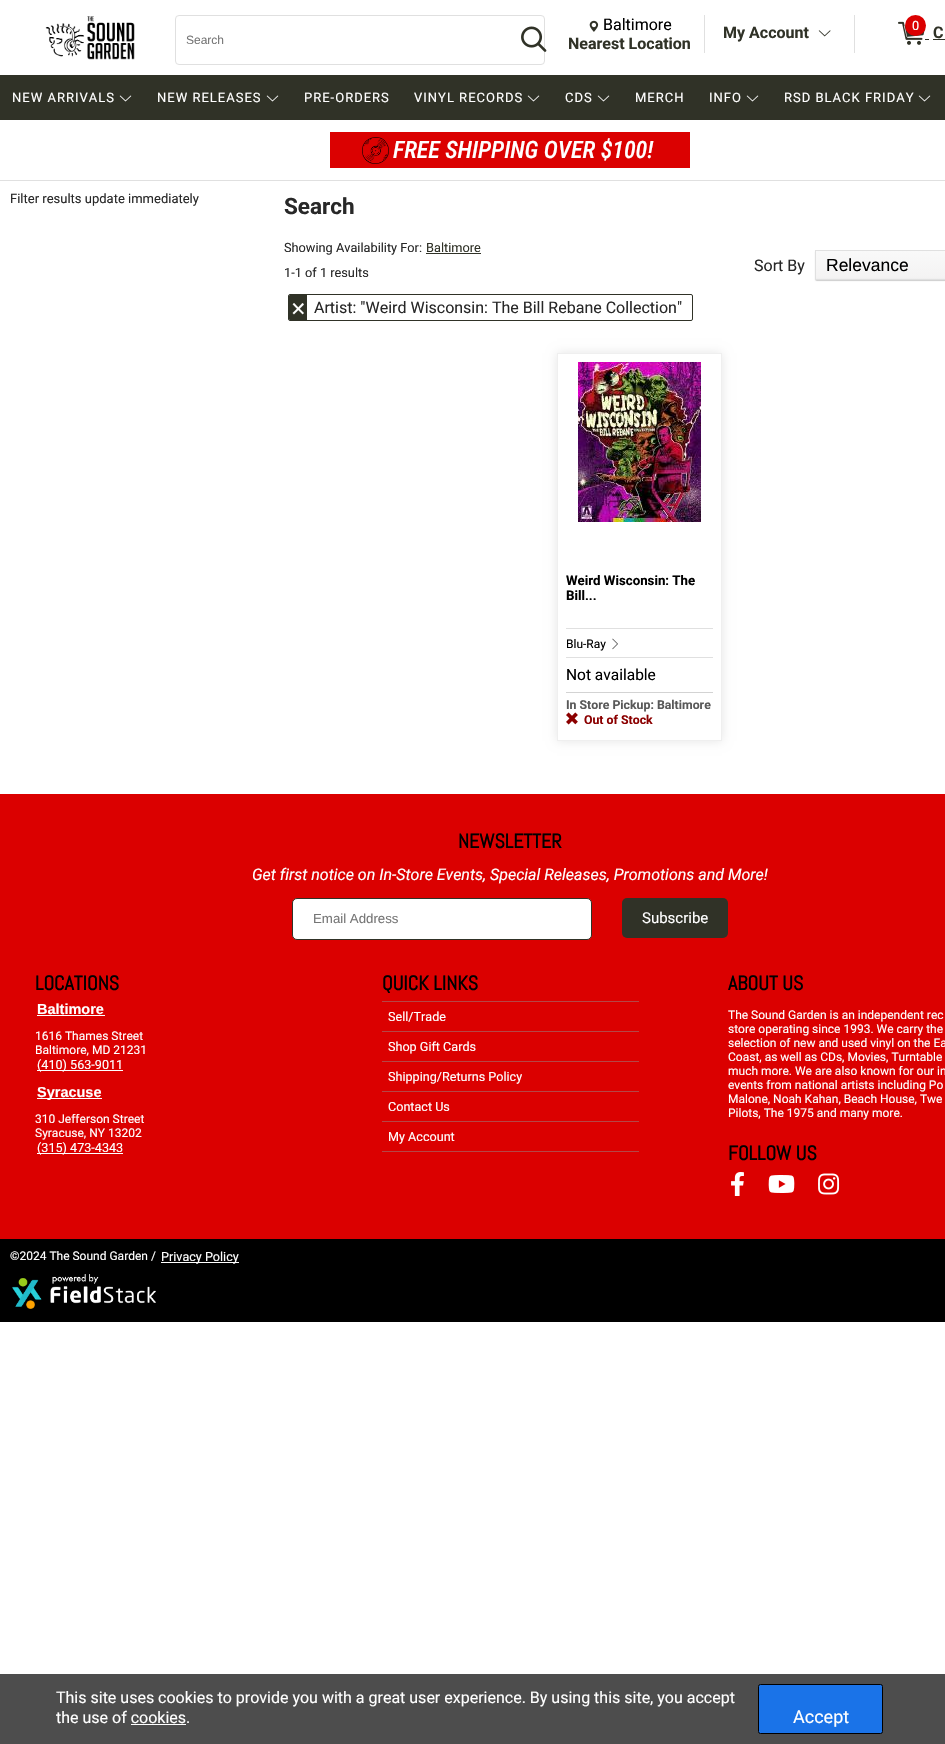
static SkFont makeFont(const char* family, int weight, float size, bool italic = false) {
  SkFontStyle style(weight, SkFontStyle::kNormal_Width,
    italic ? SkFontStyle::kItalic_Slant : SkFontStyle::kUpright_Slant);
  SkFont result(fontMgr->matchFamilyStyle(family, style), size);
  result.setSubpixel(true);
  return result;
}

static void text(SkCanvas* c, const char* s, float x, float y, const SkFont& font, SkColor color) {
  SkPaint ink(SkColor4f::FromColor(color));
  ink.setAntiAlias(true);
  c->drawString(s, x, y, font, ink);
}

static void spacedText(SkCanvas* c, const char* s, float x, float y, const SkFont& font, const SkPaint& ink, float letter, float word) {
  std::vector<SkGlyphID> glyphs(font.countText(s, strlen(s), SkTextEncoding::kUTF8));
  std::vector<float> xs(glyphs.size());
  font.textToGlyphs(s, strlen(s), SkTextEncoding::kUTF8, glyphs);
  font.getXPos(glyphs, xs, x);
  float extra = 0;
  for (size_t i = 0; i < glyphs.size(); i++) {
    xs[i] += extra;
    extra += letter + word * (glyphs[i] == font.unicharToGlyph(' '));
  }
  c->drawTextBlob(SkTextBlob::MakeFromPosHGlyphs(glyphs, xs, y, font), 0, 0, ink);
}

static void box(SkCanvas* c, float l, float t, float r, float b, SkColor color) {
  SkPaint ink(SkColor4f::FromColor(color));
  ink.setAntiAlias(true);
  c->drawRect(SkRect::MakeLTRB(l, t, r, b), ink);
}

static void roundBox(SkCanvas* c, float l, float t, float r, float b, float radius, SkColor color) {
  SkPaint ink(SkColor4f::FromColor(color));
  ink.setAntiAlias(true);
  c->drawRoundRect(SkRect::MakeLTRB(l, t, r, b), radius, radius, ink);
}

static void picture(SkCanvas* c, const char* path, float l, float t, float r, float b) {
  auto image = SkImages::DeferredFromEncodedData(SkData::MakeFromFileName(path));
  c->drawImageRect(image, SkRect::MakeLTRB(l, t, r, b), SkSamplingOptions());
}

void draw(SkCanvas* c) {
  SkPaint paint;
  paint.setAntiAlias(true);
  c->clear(0xffffffff);
  picture(c, "img_01.png", 45, 16, 135, 60);
  paint.setStyle(SkPaint::kStroke_Style);
  paint.setStrokeWidth(1);
  paint.setColor(0xffe0e0e0);
  c->drawRoundRect(SkRect::MakeLTRB(175.5f, 15.5f, 544.5f, 64.5f), 3.5f, 3.5f, paint);
  SkFont face1 = makeFont("Liberation Sans", 400, 12);
  text(c, "Search", 186, 44, face1, 0xff757575);
  picture(c, "img_02.png", 521, 26, 547, 52);
  box(c, 704, 15, 705, 53, 0xffe0e0e0);
  picture(c, "img_03.png", 589, 20, 599, 32);
  SkFont face2 = makeFont("Roboto", 400, 16);
  text(c, "Baltimore", 603, 30, face2, 0xff000000);
  SkFont face3 = makeFont("Roboto", 700, 16);
  text(c, "Nearest Location", 568, 49, face3, 0xff303227);
  box(c, 854, 15, 855, 53, 0xffe0e0e0);
  text(c, "My Account", 723, 38, face3, 0xff303227);
  picture(c, "img_04.png", 818, 30, 831, 37);
  box(c, 925, 39, 929, 40, 0xff303227);
  picture(c, "img_05.png", 898, 21, 926, 45);
  paint.setStyle(SkPaint::kFill_Style);
  paint.setColor(0xffdb0000);
  c->drawCircle(915.5f, 25.5f, 10.5f, paint);
  SkFont face4 = makeFont("Roboto", 400, 12.75f);
  text(c, "0", 912, 30, face4, 0xffffffff);
  text(c, "C", 933, 38, face3, 0xff303227);
  box(c, 933, 39, 945, 40, 0xff303227);
  box(c, 0, 75, 945, 120, 0xff303227);
  SkFont face5 = makeFont("Roboto", 400, 13);
  paint.setColor(0xffffffff);
  spacedText(c, "NEW ARRIVALS", 12, 102, face5, paint, 1, 0);
  picture(c, "img_06.png", 119, 95, 132, 102);
  spacedText(c, "NEW RELEASES", 157, 102, face5, paint, 1, 0);
  picture(c, "img_06.png", 266, 95, 279, 102);
  spacedText(c, "PRE-ORDERS", 304, 102, face5, paint, 1, 0);
  spacedText(c, "VINYL RECORDS", 414, 102, face5, paint, 1, 0);
  picture(c, "img_06.png", 527, 95, 540, 102);
  spacedText(c, "CDS", 565, 102, face5, paint, 1, 0);
  picture(c, "img_06.png", 597, 95, 610, 102);
  spacedText(c, "MERCH", 635, 102, face5, paint, 1, 0);
  spacedText(c, "INFO", 709, 102, face5, paint, 1, 0);
  picture(c, "img_06.png", 746, 95, 759, 102);
  spacedText(c, "RSD BLACK FRIDAY", 784, 102, face5, paint, 1, 0);
  picture(c, "img_06.png", 918, 95, 931, 102);
  box(c, 0, 180, 945, 181, 0xffe0e0e0);
  box(c, 330, 132, 690, 168, 0xffdb0101);
  picture(c, "img_07.png", 362, 137, 389, 164);
  SkFont face6 = makeFont("Roboto Condensed", 500, 24, true);
  text(c, "FREE SHIPPING OVER $100!", 393, 158, face6, 0xffffffff);
  text(c, "Filter results update immediately", 10, 203, face5, 0xff282828);
  SkFont face7 = makeFont("Roboto", 700, 22.5f);
  text(c, "Search", 284, 214, face7, 0xff282828);
  text(c, "Showing Availability For:", 284, 252, face4, 0xff282828);
  text(c, "Baltimore", 426, 252, face4, 0xff303227);
  box(c, 426, 253, 481, 254, 0xff303227);
  text(c, "1-1 of 1 results", 284, 277, face4, 0xff282828);
  text(c, "Sort By", 754, 271, face2, 0xff282828);
  paint.setColor(0xffcdcdcd);
  paint.setMaskFilter(SkMaskFilter::MakeBlur(kNormal_SkBlurStyle, 0.5f));
  c->drawRoundRect(SkRect::MakeLTRB(815, 251, 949, 281), 2, 2, paint);
  paint.setMaskFilter(nullptr);
  picture(c, "img_08.png", 816, 251, 945, 279);
  paint.setStyle(SkPaint::kStroke_Style);
  paint.setColor(0xffe0e0e0);
  c->drawRect(SkRect::MakeLTRB(815.5f, 250.5f, 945.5f, 279.5f), paint);
  SkFont face8 = makeFont("Liberation Sans", 400, 17.5f);
  text(c, "Relevance", 826, 271, face8, 0xff000000);
  paint.setColor(0xff303227);
  c->drawRoundRect(SkRect::MakeLTRB(288.5f, 294.5f, 692.5f, 320.5f), 1.5f, 1.5f, paint);
  paint.setStyle(SkPaint::kFill_Style);
  c->drawPath(SkPathBuilder().moveTo(290, 295).lineTo(307, 295).lineTo(307, 320).lineTo(290, 320).cubicTo(289.5f, 320, 289, 319.5f, 289, 319).lineTo(289, 296).cubicTo(289, 295.5f, 289.5f, 295, 290, 295).close().detach(), paint);
  SkFont face9 = makeFont("Liberation Sans", 400, 25);
  text(c, "×", 291, 317, face9, 0xffffffff);
  text(c, "Artist: \"Weird Wisconsin: The Bill Rebane Collection\"", 314, 313, face2, 0xff282828);
  c->save();
  c->clipPath(SkPathBuilder(SkPathFillType::kEvenOdd).moveTo(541, 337).lineTo(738, 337).lineTo(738, 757).lineTo(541, 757).close().moveTo(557, 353).lineTo(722, 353).lineTo(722, 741).lineTo(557, 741).close().detach(), true);
  paint.setColor(0x1a000000);
  paint.setMaskFilter(SkMaskFilter::MakeBlur(kNormal_SkBlurStyle, 5));
  c->drawRect(SkRect::MakeLTRB(557, 353, 722, 741), paint);
  paint.setMaskFilter(nullptr);
  c->restore();
  paint.setStyle(SkPaint::kStroke_Style);
  paint.setColor(0xffefefef);
  c->drawRect(SkRect::MakeLTRB(557.5f, 353.5f, 721.5f, 740.5f), paint);
  picture(c, "img_09.png", 578, 362, 701, 522);
  SkFont face10 = makeFont("Roboto", 700, 13.25f);
  text(c, "Weird Wisconsin: The", 566, 585, face10, 0xff000000);
  text(c, "Bill...", 566, 600, face10, 0xff000000);
  box(c, 566, 628, 713, 629, 0xffe0e0e0);
  box(c, 566, 657, 713, 658, 0xffe0e0e0);
  SkFont face11 = makeFont("Roboto", 400, 12);
  text(c, "Blu-Ray", 566, 648, face11, 0xff000000);
  picture(c, "img_10.png", 612, 638, 618, 650);
  SkFont face12 = makeFont("Roboto", 400, 15.5f);
  text(c, "Not available", 566, 680, face12, 0xff000000);
  box(c, 566, 692, 713, 693, 0xffd3d3d3);
  SkFont face13 = makeFont("Roboto", 700, 12.3f);
  text(c, "In Store Pickup: Baltimore", 566, 709, face13, 0xff595959);
  picture(c, "img_11.png", 566, 712, 578, 725);
  text(c, "Out of Stock", 584, 724, face13, 0xff8b0000);
  box(c, 0, 794, 945, 1239, 0xffdb0000);
  SkFont face14 = makeFont("Abel", 700, 20);
  text(c, "NEWSLETTER", 458, 848, face14, 0xff000000);
  SkFont face15 = makeFont("Roboto", 400, 16, true);
  text(c, "Get first notice on In-Store Events, Special Releases, Promotions and More!", 252, 880, face15, 0xffffffff);
  paint.setStyle(SkPaint::kFill_Style);
  paint.setColor(0xffffffff);
  c->drawRoundRect(SkRect::MakeLTRB(292.5f, 898.5f, 591.5f, 939.5f), 4.5f, 4.5f, paint);
  paint.setStyle(SkPaint::kStroke_Style);
  paint.setColor(0xff303227);
  c->drawRoundRect(SkRect::MakeLTRB(292.5f, 898.5f, 591.5f, 939.5f), 4.5f, 4.5f, paint);
  SkFont face16 = makeFont("Liberation Sans", 400, 13.25f);
  text(c, "Email Address", 313, 923, face16, 0xff757575);
  roundBox(c, 622, 898, 728, 938, 5, 0xff303227);
  SkFont face17 = makeFont("Roboto", 400, 15);
  text(c, "Subscribe", 642, 923, face17, 0xffffffff);
  text(c, "LOCATIONS", 35, 990, face14, 0xff000000);
  SkFont face18 = makeFont("Liberation Sans", 700, 14.5f);
  text(c, "Baltimore", 37, 1014, face18, 0xffffffff);
  box(c, 37, 1015, 105, 1016, 0xffffffff);
  text(c, "1616 Thames Street", 35, 1040, face11, 0xffffffff);
  text(c, "Baltimore, MD 21231", 35, 1054, face11, 0xffffffff);
  box(c, 37, 1070, 123, 1071, 0xffffffff);
  SkFont face19 = makeFont("Roboto", 400, 12.6f);
  text(c, "(410) 563-9011", 37, 1069, face19, 0xffffffff);
  box(c, 37, 1098, 102, 1099, 0xffffffff);
  text(c, "Syracuse", 37, 1097, face18, 0xffffffff);
  text(c, "310 Jefferson Street", 35, 1123, face11, 0xffffffff);
  text(c, "Syracuse, NY 13202", 35, 1137, face11, 0xffffffff);
  box(c, 37, 1153, 123, 1154, 0xffffffff);
  text(c, "(315) 473-4343", 37, 1152, face19, 0xffffffff);
  text(c, "QUICK LINKS", 382, 990, face14, 0xff000000);
  box(c, 382, 1151, 639, 1152, 0xffb54646);
  box(c, 382, 1001, 639, 1002, 0xffb54646);
  text(c, "Sell/Trade", 388, 1021, face19, 0xffffffff);
  box(c, 382, 1031, 639, 1032, 0xffb54646);
  text(c, "Shop Gift Cards", 388, 1051, face19, 0xffffffff);
  box(c, 382, 1061, 639, 1062, 0xffb54646);
  text(c, "Shipping/Returns Policy", 388, 1081, face19, 0xffffffff);
  box(c, 382, 1091, 639, 1092, 0xffb54646);
  text(c, "Contact Us", 388, 1111, face19, 0xffffffff);
  box(c, 382, 1121, 639, 1122, 0xffb54646);
  text(c, "My Account", 388, 1141, face19, 0xffffffff);
  text(c, "ABOUT US", 728, 990, face14, 0xff000000);
  text(c, "The Sound Garden is an independent rec", 728, 1019, face11, 0xffffffff);
  text(c, "store operating since 1993. We carry the", 728, 1033, face11, 0xffffffff);
  text(c, "selection of new and used vinyl on the Ea", 728, 1047, face11, 0xffffffff);
  text(c, "Coast, as well as CDs, Movies, Turntable", 728, 1061, face11, 0xffffffff);
  text(c, "much more. We are also known for our in", 728, 1075, face11, 0xffffffff);
  text(c, "events from national artists including Po", 728, 1089, face11, 0xffffffff);
  text(c, "Malone, Noah Kahan, Beach House, Twe", 728, 1103, face11, 0xffffffff);
  text(c, "Pilots, The 1975 and many more.", 728, 1117, face11, 0xffffffff);
  text(c, "FOLLOW US", 728, 1160, face14, 0xff000000);
  picture(c, "img_12.png", 731, 1172, 744, 1196);
  picture(c, "img_13.png", 768, 1175, 795, 1193);
  picture(c, "img_14.png", 818, 1173, 840, 1195);
  box(c, 0, 1239, 945, 1322, 0xff000000);
  text(c, "©2024 The Sound Garden /", 10, 1260, face11, 0xffffffff);
  box(c, 161, 1262, 239, 1263, 0xffffffff);
  text(c, "Privacy Policy", 161, 1261, face19, 0xffffffff);
  picture(c, "img_15.png", 12, 1274, 156, 1309);
  box(c, 0, 1674, 945, 1744, 0xff4d4d4d);
  text(c, "This site uses cookies to provide you with a great user experience. By using this site, you accept", 56, 1703, face2, 0xffffffff);
  text(c, "the use of cookies.", 56, 1723, face2, 0xffffffff);
  box(c, 131, 1724, 186, 1725, 0xffffffff);
  paint.setStyle(SkPaint::kFill_Style);
  paint.setColor(0xff1a73e8);
  c->drawRoundRect(SkRect::MakeLTRB(758.5f, 1684.5f, 882.5f, 1733.5f), 2, 2, paint);
  paint.setStyle(SkPaint::kStroke_Style);
  paint.setColor(0xff000000);
  c->drawRoundRect(SkRect::MakeLTRB(758.5f, 1684.5f, 882.5f, 1733.5f), 2, 2, paint);
  SkFont face20 = makeFont("Roboto", 400, 18);
  text(c, "Accept", 793, 1723, face20, 0xffffffff);
}
